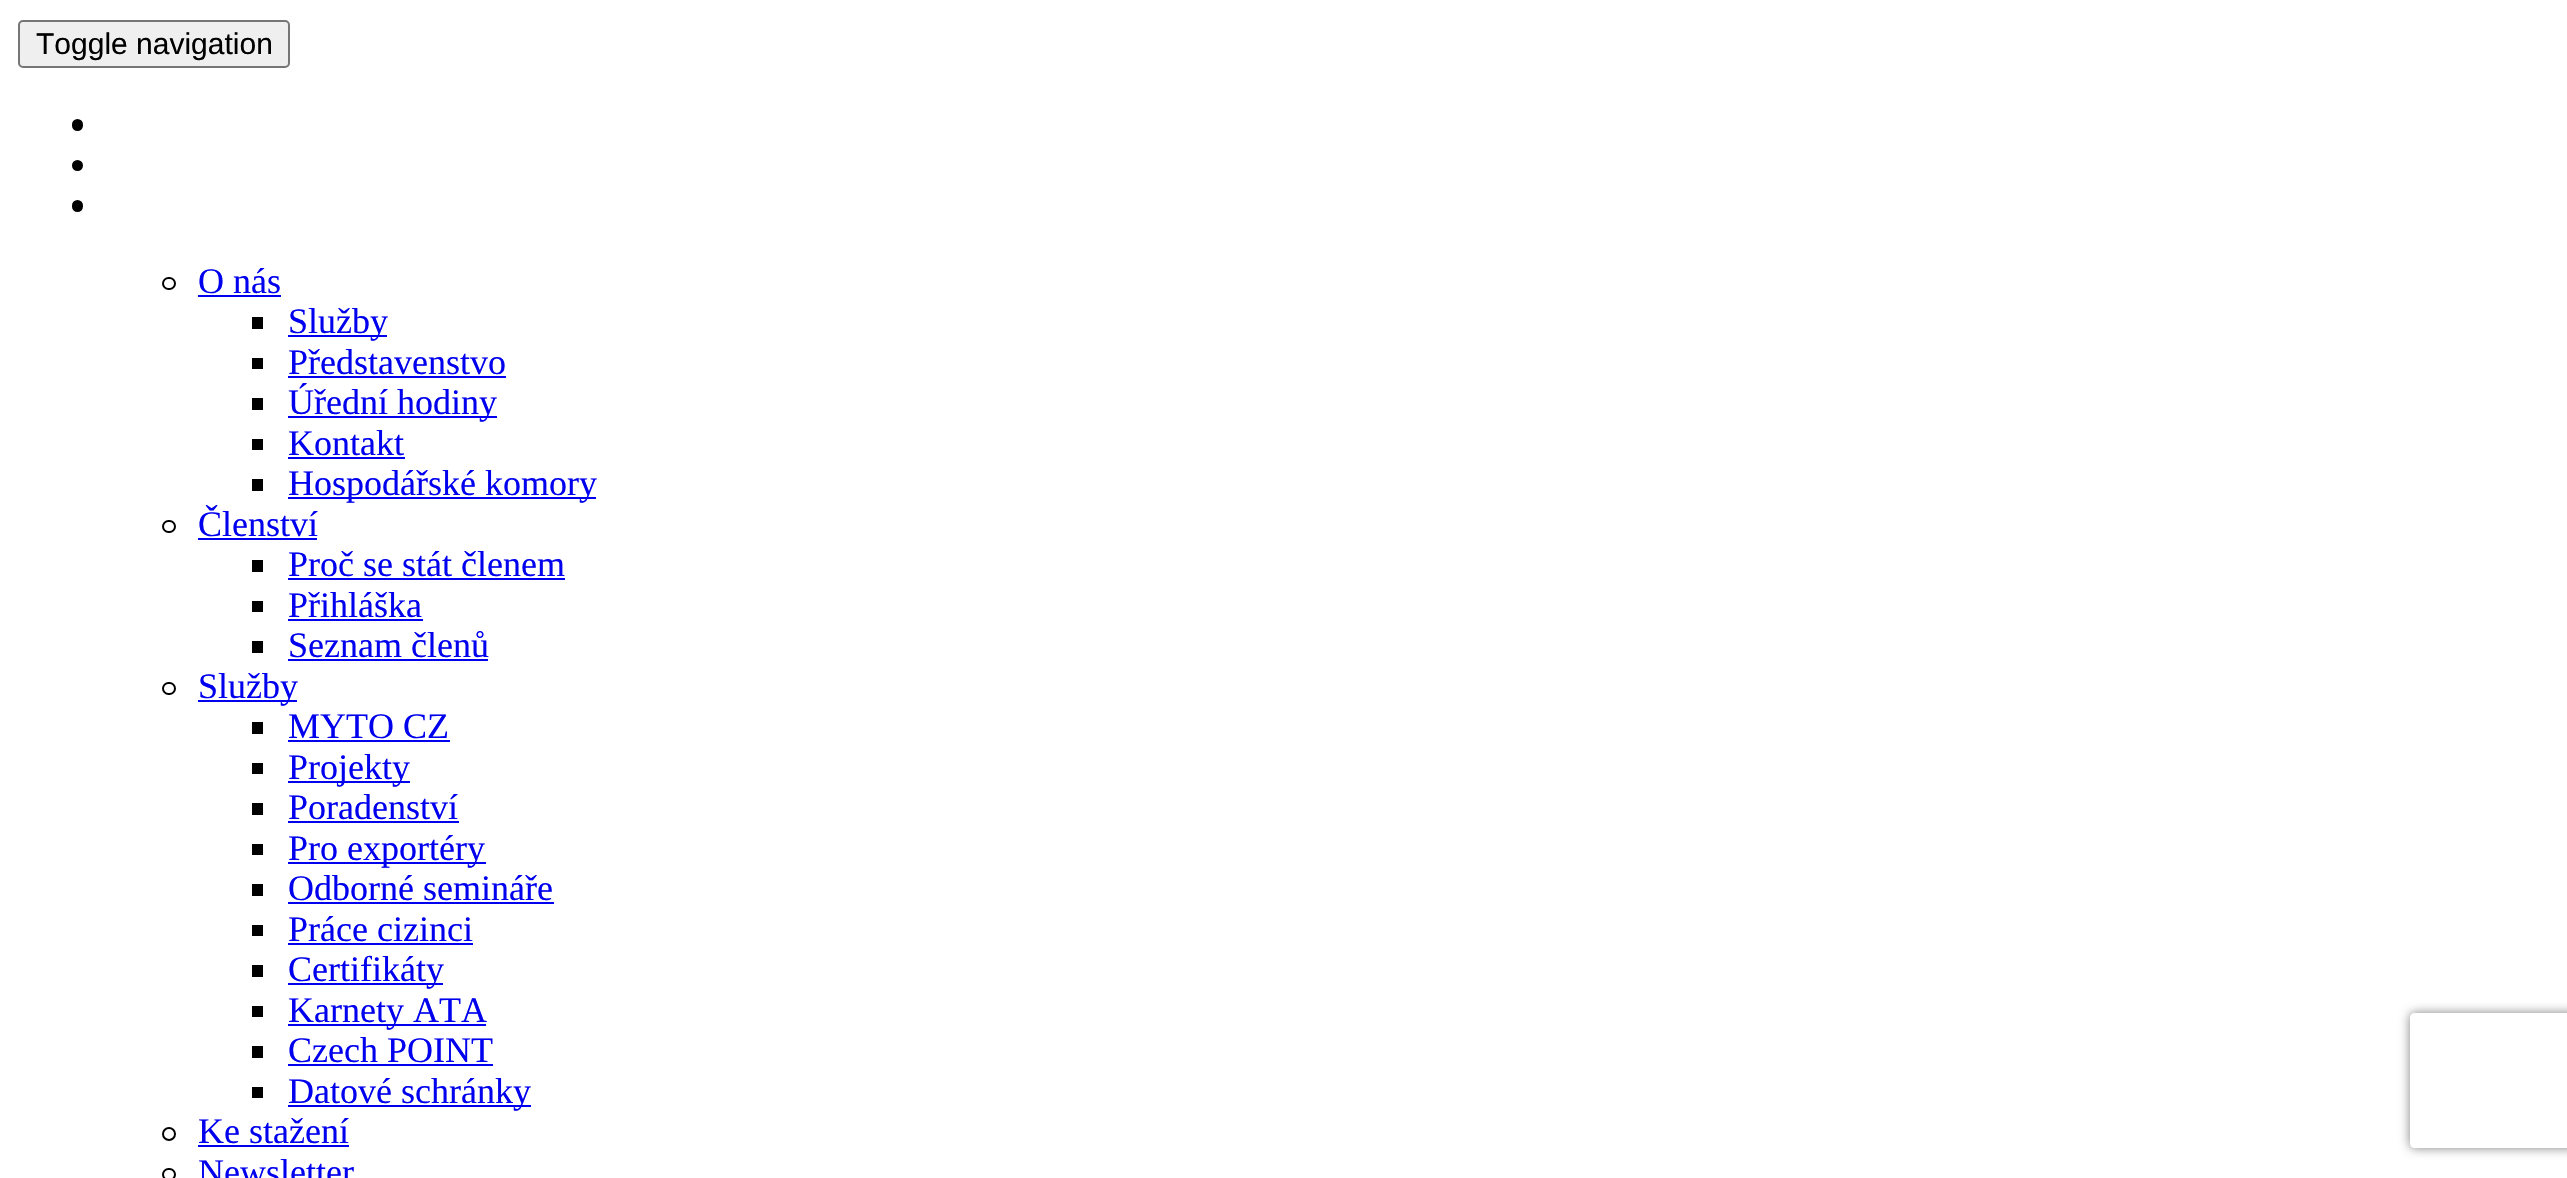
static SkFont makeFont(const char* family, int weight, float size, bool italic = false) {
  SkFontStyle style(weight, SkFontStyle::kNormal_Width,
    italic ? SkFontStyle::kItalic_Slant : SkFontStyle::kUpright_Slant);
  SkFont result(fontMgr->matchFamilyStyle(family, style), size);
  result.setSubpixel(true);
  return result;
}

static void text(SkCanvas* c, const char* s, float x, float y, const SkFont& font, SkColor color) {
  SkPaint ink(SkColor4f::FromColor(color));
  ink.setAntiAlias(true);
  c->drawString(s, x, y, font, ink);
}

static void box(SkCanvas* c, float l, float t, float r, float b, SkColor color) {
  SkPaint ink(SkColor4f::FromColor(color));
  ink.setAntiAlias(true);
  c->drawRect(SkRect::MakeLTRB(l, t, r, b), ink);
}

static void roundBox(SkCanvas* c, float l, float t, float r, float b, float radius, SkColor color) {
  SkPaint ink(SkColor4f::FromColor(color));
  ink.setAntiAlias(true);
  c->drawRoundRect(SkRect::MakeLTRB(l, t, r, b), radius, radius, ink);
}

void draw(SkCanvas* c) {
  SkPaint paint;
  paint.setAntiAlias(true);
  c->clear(0xffffffff);
  paint.setColor(0xffefefef);
  c->drawRoundRect(SkRect::MakeLTRB(19, 21, 289, 67), 4, 4, paint);
  paint.setStyle(SkPaint::kStroke_Style);
  paint.setStrokeWidth(2);
  paint.setColor(0xff767676);
  c->drawRoundRect(SkRect::MakeLTRB(19, 21, 289, 67), 4, 4, paint);
  SkFont face1 = makeFont("Liberation Sans", 400, 30);
  text(c, "Toggle navigation", 36, 54, face1, 0xff000000);
  roundBox(c, 72, 119, 83, 131, 5.5f, 0xff000000);
  paint.setStyle(SkPaint::kFill_Style);
  paint.setColor(0xff000000);
  c->drawCircle(77.5f, 165.5f, 5.5f, paint);
  roundBox(c, 72, 200, 83, 212, 5.5f, 0xff000000);
  paint.setStyle(SkPaint::kStroke_Style);
  c->drawRoundRect(SkRect::MakeLTRB(163, 278, 175, 289), 5.5f, 5.5f, paint);
  SkFont face2 = makeFont("Liberation Serif", 400, 36);
  text(c, "O nás", 198, 293, face2, 0xff0000ee);
  box(c, 198, 295, 281, 297, 0xff0000ee);
  box(c, 252, 317, 263, 329, 0xff000000);
  box(c, 288, 335, 387, 337, 0xff0000ee);
  text(c, "Služby", 288, 333, face2, 0xff0000ee);
  box(c, 252, 358, 263, 369, 0xff000000);
  text(c, "Představenstvo", 288, 374, face2, 0xff0000ee);
  box(c, 288, 376, 506, 378, 0xff0000ee);
  box(c, 252, 398, 263, 410, 0xff000000);
  box(c, 288, 416, 497, 418, 0xff0000ee);
  text(c, "Úřední hodiny", 288, 414, face2, 0xff0000ee);
  box(c, 252, 439, 263, 450, 0xff000000);
  text(c, "Kontakt", 288, 455, face2, 0xff0000ee);
  box(c, 288, 457, 405, 459, 0xff0000ee);
  box(c, 252, 479, 263, 491, 0xff000000);
  box(c, 288, 497, 596, 499, 0xff0000ee);
  text(c, "Hospodářské komory", 288, 495, face2, 0xff0000ee);
  c->drawRoundRect(SkRect::MakeLTRB(163, 521, 175, 532), 5.5f, 5.5f, paint);
  text(c, "Členství", 198, 536, face2, 0xff0000ee);
  box(c, 198, 538, 317, 540, 0xff0000ee);
  box(c, 252, 560, 263, 572, 0xff000000);
  text(c, "Proč se stát členem", 288, 576, face2, 0xff0000ee);
  box(c, 288, 578, 565, 580, 0xff0000ee);
  box(c, 252, 601, 263, 612, 0xff000000);
  text(c, "Přihláška", 288, 617, face2, 0xff0000ee);
  box(c, 288, 619, 423, 621, 0xff0000ee);
  box(c, 252, 641, 263, 653, 0xff000000);
  text(c, "Seznam členů", 288, 657, face2, 0xff0000ee);
  box(c, 288, 659, 488, 661, 0xff0000ee);
  c->drawRoundRect(SkRect::MakeLTRB(163, 683, 175, 694), 5.5f, 5.5f, paint);
  box(c, 198, 700, 297, 702, 0xff0000ee);
  text(c, "Služby", 198, 698, face2, 0xff0000ee);
  box(c, 252, 722, 263, 734, 0xff000000);
  text(c, "MYTO CZ", 288, 738, face2, 0xff0000ee);
  box(c, 288, 740, 450, 742, 0xff0000ee);
  box(c, 252, 763, 263, 774, 0xff000000);
  box(c, 288, 781, 410, 783, 0xff0000ee);
  text(c, "Projekty", 288, 779, face2, 0xff0000ee);
  box(c, 252, 803, 263, 815, 0xff000000);
  text(c, "Poradenství", 288, 819, face2, 0xff0000ee);
  box(c, 288, 821, 459, 823, 0xff0000ee);
  box(c, 252, 844, 263, 855, 0xff000000);
  box(c, 288, 862, 486, 864, 0xff0000ee);
  text(c, "Pro exportéry", 288, 860, face2, 0xff0000ee);
  box(c, 252, 884, 263, 896, 0xff000000);
  text(c, "Odborné semináře", 288, 900, face2, 0xff0000ee);
  box(c, 288, 902, 554, 904, 0xff0000ee);
  box(c, 252, 925, 263, 936, 0xff000000);
  text(c, "Práce cizinci", 288, 941, face2, 0xff0000ee);
  box(c, 288, 943, 473, 945, 0xff0000ee);
  box(c, 252, 965, 263, 977, 0xff000000);
  box(c, 288, 983, 443, 985, 0xff0000ee);
  text(c, "Certifikáty", 288, 981, face2, 0xff0000ee);
  box(c, 252, 1006, 263, 1017, 0xff000000);
  box(c, 288, 1024, 486, 1026, 0xff0000ee);
  text(c, "Karnety ATA", 288, 1022, face2, 0xff0000ee);
  box(c, 252, 1046, 263, 1058, 0xff000000);
  text(c, "Czech POINT", 288, 1062, face2, 0xff0000ee);
  box(c, 288, 1064, 493, 1066, 0xff0000ee);
  box(c, 252, 1087, 263, 1098, 0xff000000);
  box(c, 288, 1105, 531, 1107, 0xff0000ee);
  text(c, "Datové schránky", 288, 1103, face2, 0xff0000ee);
  c->drawCircle(169, 1134, 6, paint);
  text(c, "Ke stažení", 198, 1143, face2, 0xff0000ee);
  box(c, 198, 1145, 349, 1147, 0xff0000ee);
  c->drawRoundRect(SkRect::MakeLTRB(163, 1169, 175, 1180), 5.5f, 5.5f, paint);
  text(c, "Newsletter", 198, 1184, face2, 0xff0000ee);
  c->save();
  c->clipPath(SkPathBuilder(SkPathFillType::kEvenOdd).moveTo(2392, 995).lineTo(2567, 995).lineTo(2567, 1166).lineTo(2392, 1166).close().moveTo(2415, 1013).lineTo(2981, 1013).cubicTo(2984, 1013, 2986, 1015, 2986, 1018).lineTo(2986, 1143).cubicTo(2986, 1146, 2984, 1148, 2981, 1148).lineTo(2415, 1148).cubicTo(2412, 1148, 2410, 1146, 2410, 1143).lineTo(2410, 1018).cubicTo(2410, 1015, 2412, 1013, 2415, 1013).close().detach(), true);
  paint.setStyle(SkPaint::kFill_Style);
  paint.setColor(0xff808080);
  paint.setMaskFilter(SkMaskFilter::MakeBlur(kNormal_SkBlurStyle, 5.5f));
  c->drawRoundRect(SkRect::MakeLTRB(2410, 1013, 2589, 1148), 5, 5, paint);
  paint.setMaskFilter(nullptr);
  c->restore();
}
